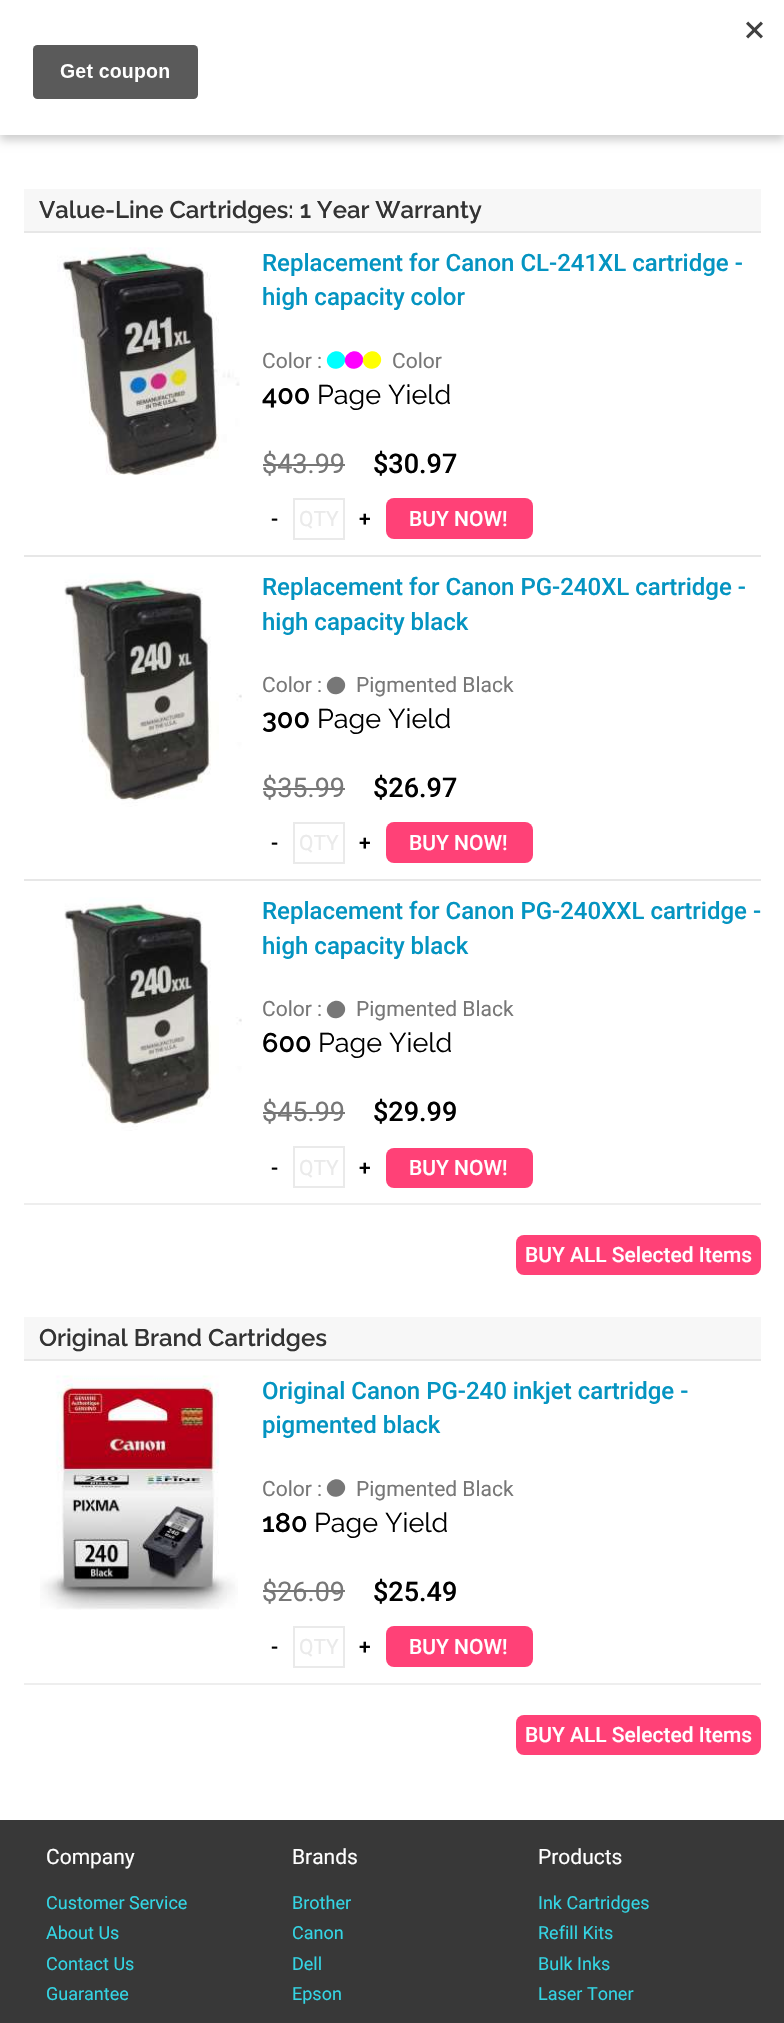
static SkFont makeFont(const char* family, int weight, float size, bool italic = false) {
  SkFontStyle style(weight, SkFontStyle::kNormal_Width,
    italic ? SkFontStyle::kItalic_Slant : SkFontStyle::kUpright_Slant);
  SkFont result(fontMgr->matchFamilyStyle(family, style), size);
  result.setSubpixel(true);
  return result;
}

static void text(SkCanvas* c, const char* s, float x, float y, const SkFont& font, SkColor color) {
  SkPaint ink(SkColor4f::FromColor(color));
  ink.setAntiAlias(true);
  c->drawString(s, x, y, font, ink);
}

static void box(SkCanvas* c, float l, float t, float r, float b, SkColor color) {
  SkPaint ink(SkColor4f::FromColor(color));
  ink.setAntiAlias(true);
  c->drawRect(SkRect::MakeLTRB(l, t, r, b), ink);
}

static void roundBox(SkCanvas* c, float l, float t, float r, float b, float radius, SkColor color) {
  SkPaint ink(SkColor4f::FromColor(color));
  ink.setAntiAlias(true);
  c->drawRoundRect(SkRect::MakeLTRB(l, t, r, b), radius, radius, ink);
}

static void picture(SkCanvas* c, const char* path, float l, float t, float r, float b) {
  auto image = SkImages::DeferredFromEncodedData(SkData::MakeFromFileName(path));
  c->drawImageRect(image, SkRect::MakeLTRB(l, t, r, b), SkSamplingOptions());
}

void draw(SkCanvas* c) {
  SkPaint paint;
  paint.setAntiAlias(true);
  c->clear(0xffffffff);
  paint.setColor(0x33000000);
  paint.setMaskFilter(SkMaskFilter::MakeBlur(kNormal_SkBlurStyle, 4.5f));
  c->drawRect(SkRect::MakeLTRB(0, 5, 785, 140), paint);
  paint.setMaskFilter(nullptr);
  box(c, 0, 0, 784, 135, 0xffffffff);
  picture(c, "img_01.png", 32, 21, 763, 99);
  box(c, 24, 189, 761, 231, 0xfff7f7f7);
  SkFont face1 = makeFont("Raleway", 600, 24);
  text(c, "Value-Line Cartridges: 1 Year Warranty", 39, 218, face1, 0xff333333);
  box(c, 24, 231, 761, 233, 0xffe7e7e7);
  picture(c, "img_02.png", 57, 247, 240, 475);
  SkFont face2 = makeFont("Roboto", 500, 24);
  text(c, "Replacement for Canon CL-241XL cartridge -", 262, 271, face2, 0xff0494c1);
  text(c, "high capacity color", 262, 305, face2, 0xff0494c1);
  SkFont face3 = makeFont("Roboto", 400, 21);
  text(c, "Color :", 262, 368, face3, 0xff777777);
  paint.setColor(0xff00ffff);
  c->drawPath(SkPathBuilder().moveTo(344, 355.5f).cubicTo(349.5f, 365.5f, 334, 374.5f, 328, 364.5f).cubicTo(322.5f, 354.5f, 338, 345.5f, 344, 355.5f).close().detach(), paint);
  paint.setColor(0xffff00ff);
  c->drawPath(SkPathBuilder().moveTo(362, 355.5f).cubicTo(367.5f, 365.5f, 352, 374.5f, 346, 364.5f).cubicTo(340.5f, 354.5f, 356, 345.5f, 362, 355.5f).close().detach(), paint);
  paint.setColor(0xffffff00);
  c->drawPath(SkPathBuilder().moveTo(380, 355.5f).cubicTo(385.5f, 365.5f, 370, 374.5f, 364, 364.5f).cubicTo(358.5f, 354.5f, 374, 345.5f, 380, 355.5f).close().detach(), paint);
  text(c, "Color", 392, 368, face3, 0xff777777);
  SkFont face4 = makeFont("Raleway", 600, 27);
  text(c, "400", 262, 404, face4, 0xff000000);
  SkFont face5 = makeFont("Raleway", 400, 27);
  text(c, "Page Yield", 317, 404, face5, 0xff000000);
  SkFont face6 = makeFont("Roboto", 400, 27);
  text(c, "$43.99", 262, 473, face6, 0xff777777);
  box(c, 263, 464, 345, 466, 0xff777777);
  SkFont face7 = makeFont("Roboto", 500, 27);
  text(c, "$30.97", 373, 473, face7, 0xff000000);
  SkFont face8 = makeFont("Roboto", 500, 21);
  text(c, "-", 271, 526, face8, 0xff000000);
  paint.setStyle(SkPaint::kStroke_Style);
  paint.setStrokeWidth(2);
  paint.setColor(0xffeaeaea);
  c->drawRect(SkRect::MakeLTRB(294, 499, 344, 539), paint);
  text(c, "QTY", 299, 526, face3, 0xffeaeaea);
  text(c, "+", 359, 526, face8, 0xff000000);
  roundBox(c, 386, 498, 533, 539, 8, 0xffff4177);
  text(c, "BUY NOW!", 409, 526, face8, 0xffffffff);
  box(c, 24, 555, 761, 557, 0xffe7e7e7);
  picture(c, "img_03.png", 64, 573, 242, 807);
  text(c, "Replacement for Canon PG-240XL cartridge -", 262, 595, face2, 0xff0494c1);
  text(c, "high capacity black", 262, 630, face2, 0xff0494c1);
  text(c, "Color :", 262, 692, face3, 0xff777777);
  paint.setStyle(SkPaint::kFill_Style);
  paint.setColor(0xff777777);
  c->drawPath(SkPathBuilder().moveTo(344, 681).cubicTo(349.5f, 691, 334, 700, 328, 690).cubicTo(322.5f, 680, 338, 671, 344, 681).close().detach(), paint);
  text(c, "Pigmented Black", 356, 692, face3, 0xff777777);
  text(c, "300", 262, 728, face4, 0xff000000);
  text(c, "Page Yield", 317, 728, face5, 0xff000000);
  text(c, "$35.99", 262, 797, face6, 0xff777777);
  box(c, 263, 788, 345, 790, 0xff777777);
  text(c, "$26.97", 373, 797, face7, 0xff000000);
  text(c, "-", 271, 850, face8, 0xff000000);
  paint.setStyle(SkPaint::kStroke_Style);
  paint.setColor(0xffeaeaea);
  c->drawRect(SkRect::MakeLTRB(294, 823, 344, 863), paint);
  text(c, "QTY", 299, 850, face3, 0xffeaeaea);
  text(c, "+", 359, 850, face8, 0xff000000);
  roundBox(c, 386, 822, 533, 863, 8, 0xffff4177);
  text(c, "BUY NOW!", 409, 850, face8, 0xffffffff);
  box(c, 24, 879, 761, 881, 0xffe7e7e7);
  picture(c, "img_04.png", 64, 897, 242, 1131);
  text(c, "Replacement for Canon PG-240XXL cartridge -", 262, 919, face2, 0xff0494c1);
  text(c, "high capacity black", 262, 954, face2, 0xff0494c1);
  text(c, "Color :", 262, 1016, face3, 0xff777777);
  paint.setStyle(SkPaint::kFill_Style);
  paint.setColor(0xff777777);
  c->drawPath(SkPathBuilder().moveTo(344, 1005).cubicTo(349.5f, 1015, 334, 1024, 328, 1014).cubicTo(322.5f, 1004, 338, 995, 344, 1005).close().detach(), paint);
  text(c, "Pigmented Black", 356, 1016, face3, 0xff777777);
  text(c, "600", 262, 1052, face4, 0xff000000);
  text(c, "Page Yield", 318, 1052, face5, 0xff000000);
  text(c, "$45.99", 262, 1121, face6, 0xff777777);
  box(c, 263, 1112, 345, 1114, 0xff777777);
  text(c, "$29.99", 373, 1121, face7, 0xff000000);
  text(c, "-", 271, 1175, face8, 0xff000000);
  paint.setStyle(SkPaint::kStroke_Style);
  paint.setColor(0xffeaeaea);
  c->drawRect(SkRect::MakeLTRB(294, 1147, 344, 1187), paint);
  text(c, "QTY", 299, 1175, face3, 0xffeaeaea);
  text(c, "+", 359, 1175, face8, 0xff000000);
  roundBox(c, 386, 1148, 533, 1188, 8, 0xffff4177);
  text(c, "BUY NOW!", 409, 1175, face8, 0xffffffff);
  box(c, 24, 1203, 761, 1205, 0xffeeeeee);
  roundBox(c, 516, 1235, 761, 1275, 8, 0xffff4177);
  text(c, "BUY ALL Selected Items", 525, 1262, face8, 0xffffffff);
  box(c, 24, 1317, 761, 1359, 0xfff7f7f7);
  text(c, "Original Brand Cartridges", 39, 1346, face1, 0xff333333);
  box(c, 24, 1359, 761, 1361, 0xffe7e7e7);
  picture(c, "img_05.png", 40, 1375, 238, 1610);
  text(c, "Original Canon PG-240 inkjet cartridge -", 262, 1399, face2, 0xff0494c1);
  text(c, "pigmented black", 262, 1433, face2, 0xff0494c1);
  text(c, "Color :", 262, 1496, face3, 0xff777777);
  paint.setStyle(SkPaint::kFill_Style);
  paint.setColor(0xff777777);
  c->drawPath(SkPathBuilder().moveTo(344, 1483.5f).cubicTo(349.5f, 1493.5f, 334, 1502.5f, 328, 1492.5f).cubicTo(322.5f, 1482.5f, 338, 1473.5f, 344, 1483.5f).close().detach(), paint);
  text(c, "Pigmented Black", 356, 1496, face3, 0xff777777);
  text(c, "180", 262, 1532, face4, 0xff000000);
  text(c, "Page Yield", 314, 1532, face5, 0xff000000);
  text(c, "$26.09", 262, 1601, face6, 0xff777777);
  box(c, 263, 1590, 345, 1592, 0xff777777);
  text(c, "$25.49", 373, 1601, face7, 0xff000000);
  text(c, "-", 271, 1654, face8, 0xff000000);
  paint.setStyle(SkPaint::kStroke_Style);
  paint.setColor(0xffeaeaea);
  c->drawRect(SkRect::MakeLTRB(294, 1627, 344, 1667), paint);
  text(c, "QTY", 299, 1654, face3, 0xffeaeaea);
  text(c, "+", 359, 1654, face8, 0xff000000);
  roundBox(c, 386, 1626, 533, 1667, 8, 0xffff4177);
  text(c, "BUY NOW!", 409, 1654, face8, 0xffffffff);
  box(c, 24, 1683, 761, 1685, 0xffeeeeee);
  roundBox(c, 516, 1715, 761, 1755, 8, 0xffff4177);
  text(c, "BUY ALL Selected Items", 525, 1742, face8, 0xffffffff);
  box(c, 0, 1820, 784, 2023, 0xff383838);
  text(c, "Company", 46, 1864, face3, 0xffffffff);
  SkFont face9 = makeFont("Roboto", 400, 18);
  text(c, "Customer Service", 46, 1909, face9, 0xff34d5e4);
  text(c, "About Us", 46, 1939, face9, 0xff34d5e4);
  text(c, "Contact Us", 46, 1970, face9, 0xff34d5e4);
  text(c, "Guarantee", 46, 2000, face9, 0xff34d5e4);
  text(c, "Brands", 292, 1864, face3, 0xffffffff);
  text(c, "Brother", 292, 1909, face9, 0xff34d5e4);
  text(c, "Canon", 292, 1939, face9, 0xff34d5e4);
  text(c, "Dell", 292, 1970, face9, 0xff34d5e4);
  text(c, "Epson", 292, 2000, face9, 0xff34d5e4);
  text(c, "Products", 538, 1864, face3, 0xffffffff);
  text(c, "Ink Cartridges", 538, 1909, face9, 0xff34d5e4);
  text(c, "Refill Kits", 538, 1939, face9, 0xff34d5e4);
  text(c, "Bulk Inks", 538, 1970, face9, 0xff34d5e4);
  text(c, "Laser Toner", 538, 2000, face9, 0xff34d5e4);
}
